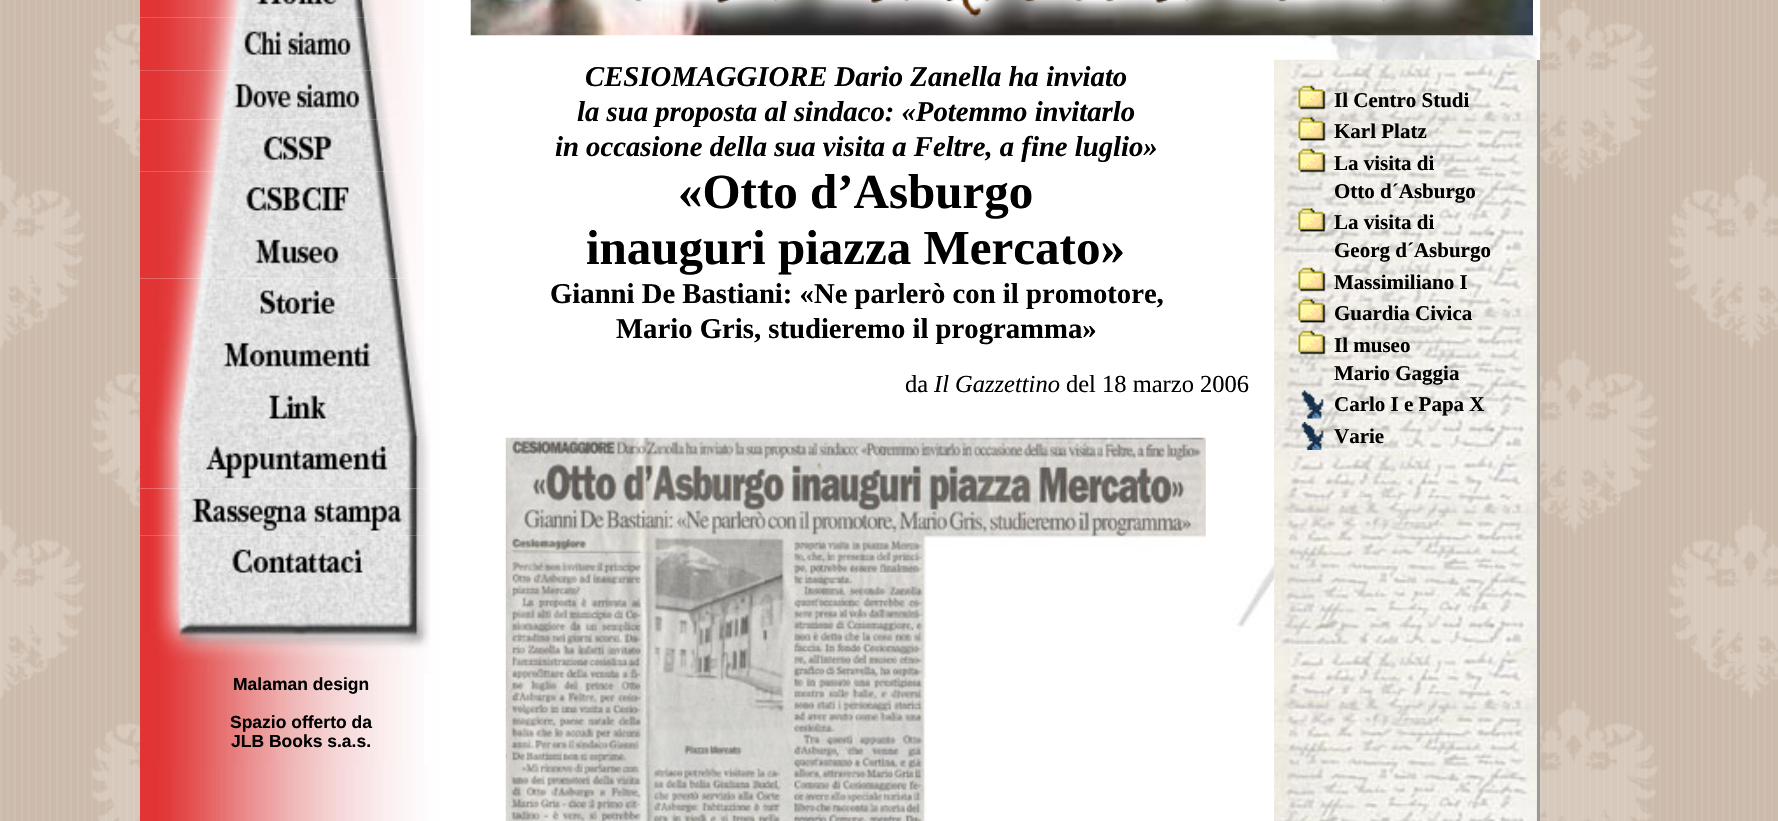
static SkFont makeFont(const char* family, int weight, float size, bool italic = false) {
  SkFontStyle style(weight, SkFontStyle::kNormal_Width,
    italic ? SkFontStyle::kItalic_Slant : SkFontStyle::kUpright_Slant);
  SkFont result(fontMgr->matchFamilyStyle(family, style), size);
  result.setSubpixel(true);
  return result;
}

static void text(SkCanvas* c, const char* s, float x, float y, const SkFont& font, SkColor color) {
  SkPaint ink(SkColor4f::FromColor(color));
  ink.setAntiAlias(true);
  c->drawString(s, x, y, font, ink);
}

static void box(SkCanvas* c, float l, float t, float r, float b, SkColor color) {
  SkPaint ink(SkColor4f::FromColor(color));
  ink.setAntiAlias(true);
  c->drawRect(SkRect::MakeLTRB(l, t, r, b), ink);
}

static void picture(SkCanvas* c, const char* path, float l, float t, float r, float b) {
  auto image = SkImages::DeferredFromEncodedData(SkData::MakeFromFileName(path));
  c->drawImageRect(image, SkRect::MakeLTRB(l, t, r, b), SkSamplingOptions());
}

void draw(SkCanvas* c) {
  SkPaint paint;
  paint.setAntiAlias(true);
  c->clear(0xffffffff);
  picture(c, "img_01.png", 0, 0, 1778, 821);
  picture(c, "img_02.png", 140, 0, 1540, 821);
  picture(c, "img_03.png", 470, 0, 1533, 36);
  SkFont face1 = makeFont("Liberation Serif", 700, 28.7f, true);
  text(c, "CESIOMAGGIORE Dario Zanella ha inviato", 585, 86, face1, 0xff000000);
  text(c, "la sua proposta al sindaco: «Potemmo invitarlo", 577, 121, face1, 0xff000000);
  text(c, "in occasione della sua visita a Feltre, a fine luglio»", 555, 156, face1, 0xff000000);
  SkFont face2 = makeFont("Liberation Serif", 700, 49);
  text(c, "«Otto d’Asburgo", 678, 208, face2, 0xff000000);
  text(c, "inauguri piazza Mercato»", 586, 264, face2, 0xff000000);
  SkFont face3 = makeFont("Liberation Serif", 700, 28.7f);
  text(c, "Gianni De Bastiani: «Ne parlerò con il promotore,", 550, 303, face3, 0xff000000);
  text(c, "Mario Gris, studieremo il programma»", 616, 338, face3, 0xff000000);
  SkFont face4 = makeFont("Liberation Serif", 400, 24.5f);
  text(c, "da", 905, 392, face4, 0xff000000);
  SkFont face5 = makeFont("Liberation Serif", 400, 24.5f, true);
  text(c, "Il Gazzettino", 934, 392, face5, 0xff000000);
  text(c, "del 18 marzo 2006", 1066, 392, face4, 0xff000000);
  picture(c, "img_04.png", 505, 437, 1206, 821);
  picture(c, "img_05.png", 1274, 59, 1540, 821);
  box(c, 1537, 60, 1540, 821, 0xff999999);
  picture(c, "img_06.png", 1298, 85, 1326, 110);
  SkFont face6 = makeFont("Liberation Serif", 700, 21);
  text(c, "Il Centro Studi", 1334, 107, face6, 0xff000000);
  picture(c, "img_07.png", 1298, 117, 1326, 141);
  text(c, "Karl Platz", 1334, 138, face6, 0xff000000);
  picture(c, "img_08.png", 1298, 148, 1326, 173);
  text(c, "La visita di", 1334, 170, face6, 0xff000000);
  text(c, "Otto d´Asburgo", 1334, 198, face6, 0xff000000);
  picture(c, "img_09.png", 1298, 208, 1326, 232);
  text(c, "La visita di", 1334, 229, face6, 0xff000000);
  text(c, "Georg d´Asburgo", 1334, 257, face6, 0xff000000);
  picture(c, "img_10.png", 1298, 267, 1326, 292);
  text(c, "Massimiliano I", 1334, 289, face6, 0xff000000);
  picture(c, "img_11.png", 1298, 299, 1326, 323);
  text(c, "Guardia Civica", 1334, 320, face6, 0xff000000);
  picture(c, "img_12.png", 1298, 330, 1326, 355);
  text(c, "Il museo", 1334, 352, face6, 0xff000000);
  text(c, "Mario Gaggia", 1334, 380, face6, 0xff000000);
  picture(c, "img_13.png", 1301, 390, 1324, 419);
  text(c, "Carlo I e Papa X", 1334, 411, face6, 0xff000000);
  picture(c, "img_14.png", 1301, 422, 1324, 450);
  text(c, "Varie", 1334, 443, face6, 0xff000000);
  box(c, 424, 674, 430, 765, 0xffffffff);
  picture(c, "img_15.png", 140, 674, 424, 765);
  box(c, 140, 0, 430, 674, 0xffffffff);
  picture(c, "img_16.png", 140, 0, 424, 18);
  picture(c, "img_17.png", 140, 17, 424, 71);
  picture(c, "img_18.png", 140, 70, 423, 120);
  picture(c, "img_19.png", 140, 119, 424, 172);
  picture(c, "img_20.png", 140, 171, 423, 226);
  picture(c, "img_21.png", 140, 226, 424, 279);
  picture(c, "img_22.png", 140, 278, 424, 331);
  picture(c, "img_23.png", 140, 331, 424, 380);
  picture(c, "img_24.png", 140, 380, 430, 436);
  picture(c, "img_25.png", 140, 436, 431, 489);
  picture(c, "img_26.png", 140, 488, 431, 536);
  picture(c, "img_27.png", 140, 535, 431, 674);
  SkFont face7 = makeFont("Liberation Sans", 700, 17.5f);
  text(c, "Malaman design", 233, 690, face7, 0xff000000);
  text(c, "Spazio offerto da", 230, 728, face7, 0xff000000);
  text(c, "JLB Books s.a.s.", 231, 747, face7, 0xff000000);
}
